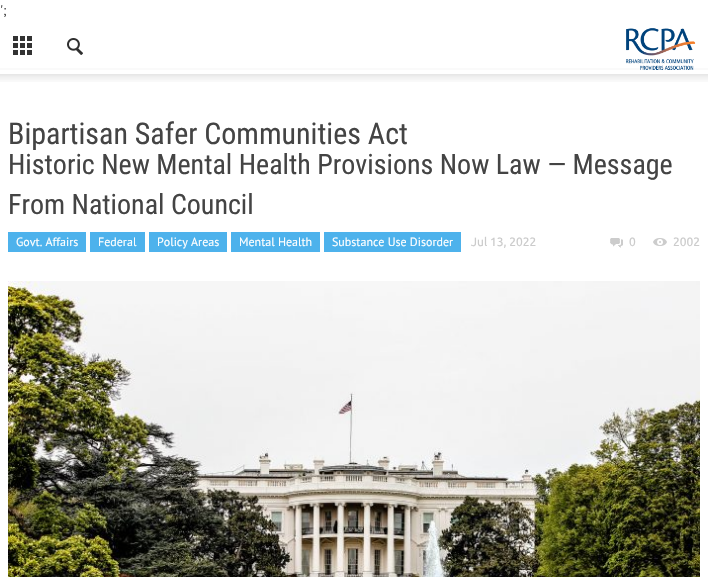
static SkFont makeFont(const char* family, int weight, float size, bool italic = false) {
  SkFontStyle style(weight, SkFontStyle::kNormal_Width,
    italic ? SkFontStyle::kItalic_Slant : SkFontStyle::kUpright_Slant);
  SkFont result(fontMgr->matchFamilyStyle(family, style), size);
  result.setSubpixel(true);
  return result;
}

static void text(SkCanvas* c, const char* s, float x, float y, const SkFont& font, SkColor color) {
  SkPaint ink(SkColor4f::FromColor(color));
  ink.setAntiAlias(true);
  c->drawString(s, x, y, font, ink);
}

static void box(SkCanvas* c, float l, float t, float r, float b, SkColor color) {
  SkPaint ink(SkColor4f::FromColor(color));
  ink.setAntiAlias(true);
  c->drawRect(SkRect::MakeLTRB(l, t, r, b), ink);
}

static void picture(SkCanvas* c, const char* path, float l, float t, float r, float b) {
  auto image = SkImages::DeferredFromEncodedData(SkData::MakeFromFileName(path));
  c->drawImageRect(image, SkRect::MakeLTRB(l, t, r, b), SkSamplingOptions());
}

void draw(SkCanvas* c) {
  SkPaint paint;
  paint.setAntiAlias(true);
  c->clear(0xffffffff);
  SkFont face1 = makeFont("PT Sans", 400, 14);
  text(c, "';", 0, 15, face1, 0xff4b4b4b);
  box(c, 0, 68, 708, 70, 0xfffafafa);
  picture(c, "img_01.png", 13, 36, 32, 55);
  picture(c, "img_02.png", 626, 28, 696, 70);
  picture(c, "img_03.png", 67, 38, 83, 55);
  picture(c, "img_04.png", 0, 74, 708, 82);
  SkFont face2 = makeFont("Roboto Condensed", 400, 30);
  text(c, "Bipartisan Safer Communities Act", 8, 144, face2, 0xff444444);
  SkFont face3 = makeFont("Roboto Condensed", 400, 28);
  text(c, "Historic New Mental Health Provisions Now Law — Message", 8, 174, face3, 0xff444444);
  text(c, "From National Council", 8, 214, face3, 0xff444444);
  box(c, 8, 232, 86, 252, 0xff4db2ec);
  SkFont face4 = makeFont("PT Sans", 400, 12);
  text(c, "Govt. Affairs", 16, 246, face4, 0xffffffff);
  box(c, 90, 232, 145, 252, 0xff4db2ec);
  text(c, "Federal", 98, 246, face4, 0xffffffff);
  box(c, 149, 232, 227, 252, 0xff4db2ec);
  text(c, "Policy Areas", 157, 246, face4, 0xffffffff);
  box(c, 231, 232, 320, 252, 0xff4db2ec);
  text(c, "Mental Health", 239, 246, face4, 0xffffffff);
  box(c, 324, 232, 461, 252, 0xff4db2ec);
  text(c, "Substance Use Disorder", 332, 246, face4, 0xffffffff);
  SkFont face5 = makeFont("Ubuntu", 400, 12);
  text(c, "Jul 13, 2022", 471, 246, face5, 0xffcbcbcb);
  picture(c, "img_05.png", 610, 238, 623, 248);
  text(c, "0", 629, 246, face5, 0xffcbcbcb);
  picture(c, "img_06.png", 653, 238, 667, 246);
  text(c, "2002", 673, 246, face5, 0xffcbcbcb);
  picture(c, "img_07.png", 8, 281, 700, 577);
}
